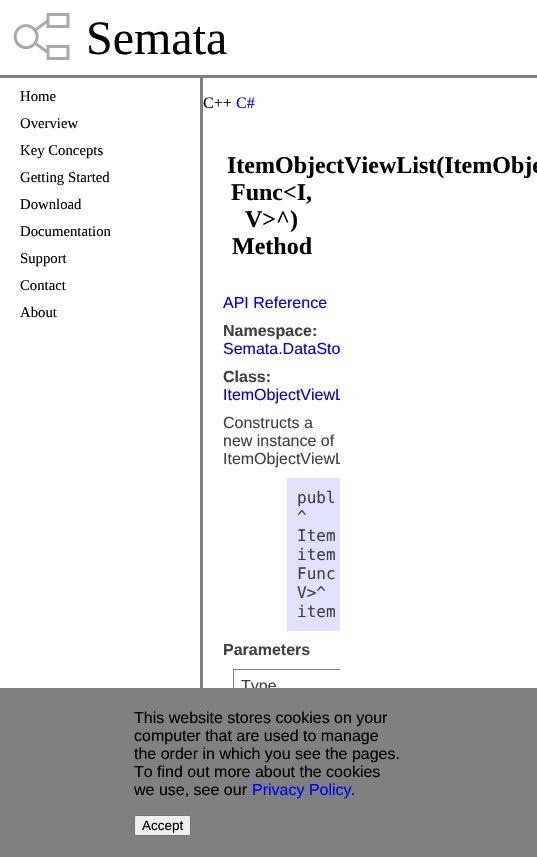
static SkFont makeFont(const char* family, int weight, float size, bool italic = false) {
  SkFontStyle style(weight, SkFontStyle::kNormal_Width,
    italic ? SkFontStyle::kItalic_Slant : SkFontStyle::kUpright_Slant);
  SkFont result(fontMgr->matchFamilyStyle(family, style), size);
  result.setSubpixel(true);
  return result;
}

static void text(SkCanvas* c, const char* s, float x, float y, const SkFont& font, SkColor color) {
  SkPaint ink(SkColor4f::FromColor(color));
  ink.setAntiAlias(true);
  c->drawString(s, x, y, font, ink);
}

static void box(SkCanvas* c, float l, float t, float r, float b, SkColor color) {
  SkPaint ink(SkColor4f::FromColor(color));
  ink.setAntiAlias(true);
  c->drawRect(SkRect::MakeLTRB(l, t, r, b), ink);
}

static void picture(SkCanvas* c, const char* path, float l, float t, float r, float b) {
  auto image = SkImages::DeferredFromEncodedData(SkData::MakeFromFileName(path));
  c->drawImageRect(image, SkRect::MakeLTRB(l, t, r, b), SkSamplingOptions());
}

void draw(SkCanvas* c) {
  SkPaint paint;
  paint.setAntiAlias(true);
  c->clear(0xffffffff);
  box(c, 0, 75, 537, 78, 0xff808080);
  picture(c, "img_01.png", 13, 13, 70, 60);
  SkFont face1 = makeFont("Liberation Serif", 400, 48);
  text(c, "Semata", 86, 54, face1, 0xff000000);
  SkFont face2 = makeFont("Liberation Serif", 400, 14.75f);
  text(c, "Home", 20, 101, face2, 0xff000000);
  text(c, "Overview", 20, 128, face2, 0xff000000);
  text(c, "Key Concepts", 20, 155, face2, 0xff000000);
  text(c, "Getting Started", 20, 182, face2, 0xff000000);
  text(c, "Download", 20, 209, face2, 0xff000000);
  text(c, "Documentation", 20, 236, face2, 0xff000000);
  text(c, "Support", 20, 263, face2, 0xff000000);
  text(c, "Contact", 20, 290, face2, 0xff000000);
  text(c, "About", 20, 317, face2, 0xff000000);
  box(c, 200, 78, 203, 688, 0xff808080);
  SkFont face3 = makeFont("Liberation Serif", 400, 16);
  text(c, "C++", 203, 108, face3, 0xff000000);
  text(c, "C#", 236, 108, face3, 0xff0000ee);
  SkFont face4 = makeFont("Liberation Serif", 700, 24);
  text(c, "ItemObjectViewList(ItemObje", 227, 173, face4, 0xff000000);
  text(c, "Func<I,", 231, 200, face4, 0xff000000);
  text(c, "V>^)", 245, 227, face4, 0xff000000);
  text(c, "Method", 232, 254, face4, 0xff000000);
  SkFont face5 = makeFont("Liberation Sans", 400, 16);
  text(c, "API Reference", 223, 308, face5, 0xff0000ee);
  SkFont face6 = makeFont("Liberation Sans", 700, 16);
  text(c, "Namespace:", 223, 336, face6, 0xff404040);
  text(c, "Semata.DataSto", 223, 354, face5, 0xff0000ee);
  text(c, "Class:", 223, 382, face6, 0xff404040);
  c->save();
  c->clipRect(SkRect::MakeLTRB(203, 284, 340, 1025));
  text(c, "ItemObjectViewL", 223, 400, face5, 0xff0000ee);
  c->restore();
  text(c, "Constructs a", 223, 428, face5, 0xff404040);
  text(c, "new instance of", 223, 446, face5, 0xff404040);
  c->save();
  c->clipRect(SkRect::MakeLTRB(203, 284, 340, 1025));
  text(c, "ItemObjectViewL", 223, 464, face5, 0xff404040);
  c->restore();
  box(c, 287, 478, 340, 631, 0xffe0e0ff);
  SkFont face7 = makeFont("DejaVu Sans Mono", 400, 16);
  text(c, "publ", 297, 503, face7, 0xff404040);
  text(c, "^", 297, 522, face7, 0xff404040);
  text(c, "Item", 297, 541, face7, 0xff404040);
  text(c, "item", 297, 560, face7, 0xff404040);
  text(c, "Func", 297, 579, face7, 0xff404040);
  text(c, "V>^", 297, 598, face7, 0xff404040);
  text(c, "item", 297, 617, face7, 0xff404040);
  text(c, "Parameters", 223, 655, face6, 0xff404040);
  box(c, 233, 669, 340, 670, 0xff808080);
  box(c, 233, 669, 234, 688, 0xff808080);
  text(c, "Type", 241, 691, face5, 0xff404040);
  box(c, 0, 688, 537, 857, 0xff808080);
  text(c, "This website stores cookies on your", 134, 723, face5, 0xff000000);
  text(c, "computer that are used to manage", 134, 741, face5, 0xff000000);
  text(c, "the order in which you see the pages.", 134, 759, face5, 0xff000000);
  text(c, "To find out more about the cookies", 134, 777, face5, 0xff000000);
  text(c, "we use, see our", 134, 795, face5, 0xff000000);
  text(c, "Privacy Policy", 252, 795, face5, 0xff0000ee);
  text(c, ".", 351, 795, face5, 0xff000000);
  paint.setColor(0xffefefef);
  c->drawRoundRect(SkRect::MakeLTRB(134.5f, 815.5f, 190.5f, 835.5f), 1.5f, 1.5f, paint);
  paint.setStyle(SkPaint::kStroke_Style);
  paint.setStrokeWidth(1);
  paint.setColor(0xff767676);
  c->drawRoundRect(SkRect::MakeLTRB(134.5f, 815.5f, 190.5f, 835.5f), 1.5f, 1.5f, paint);
  SkFont face8 = makeFont("Liberation Sans", 400, 13.5f);
  text(c, "Accept", 142, 830, face8, 0xff000000);
}
